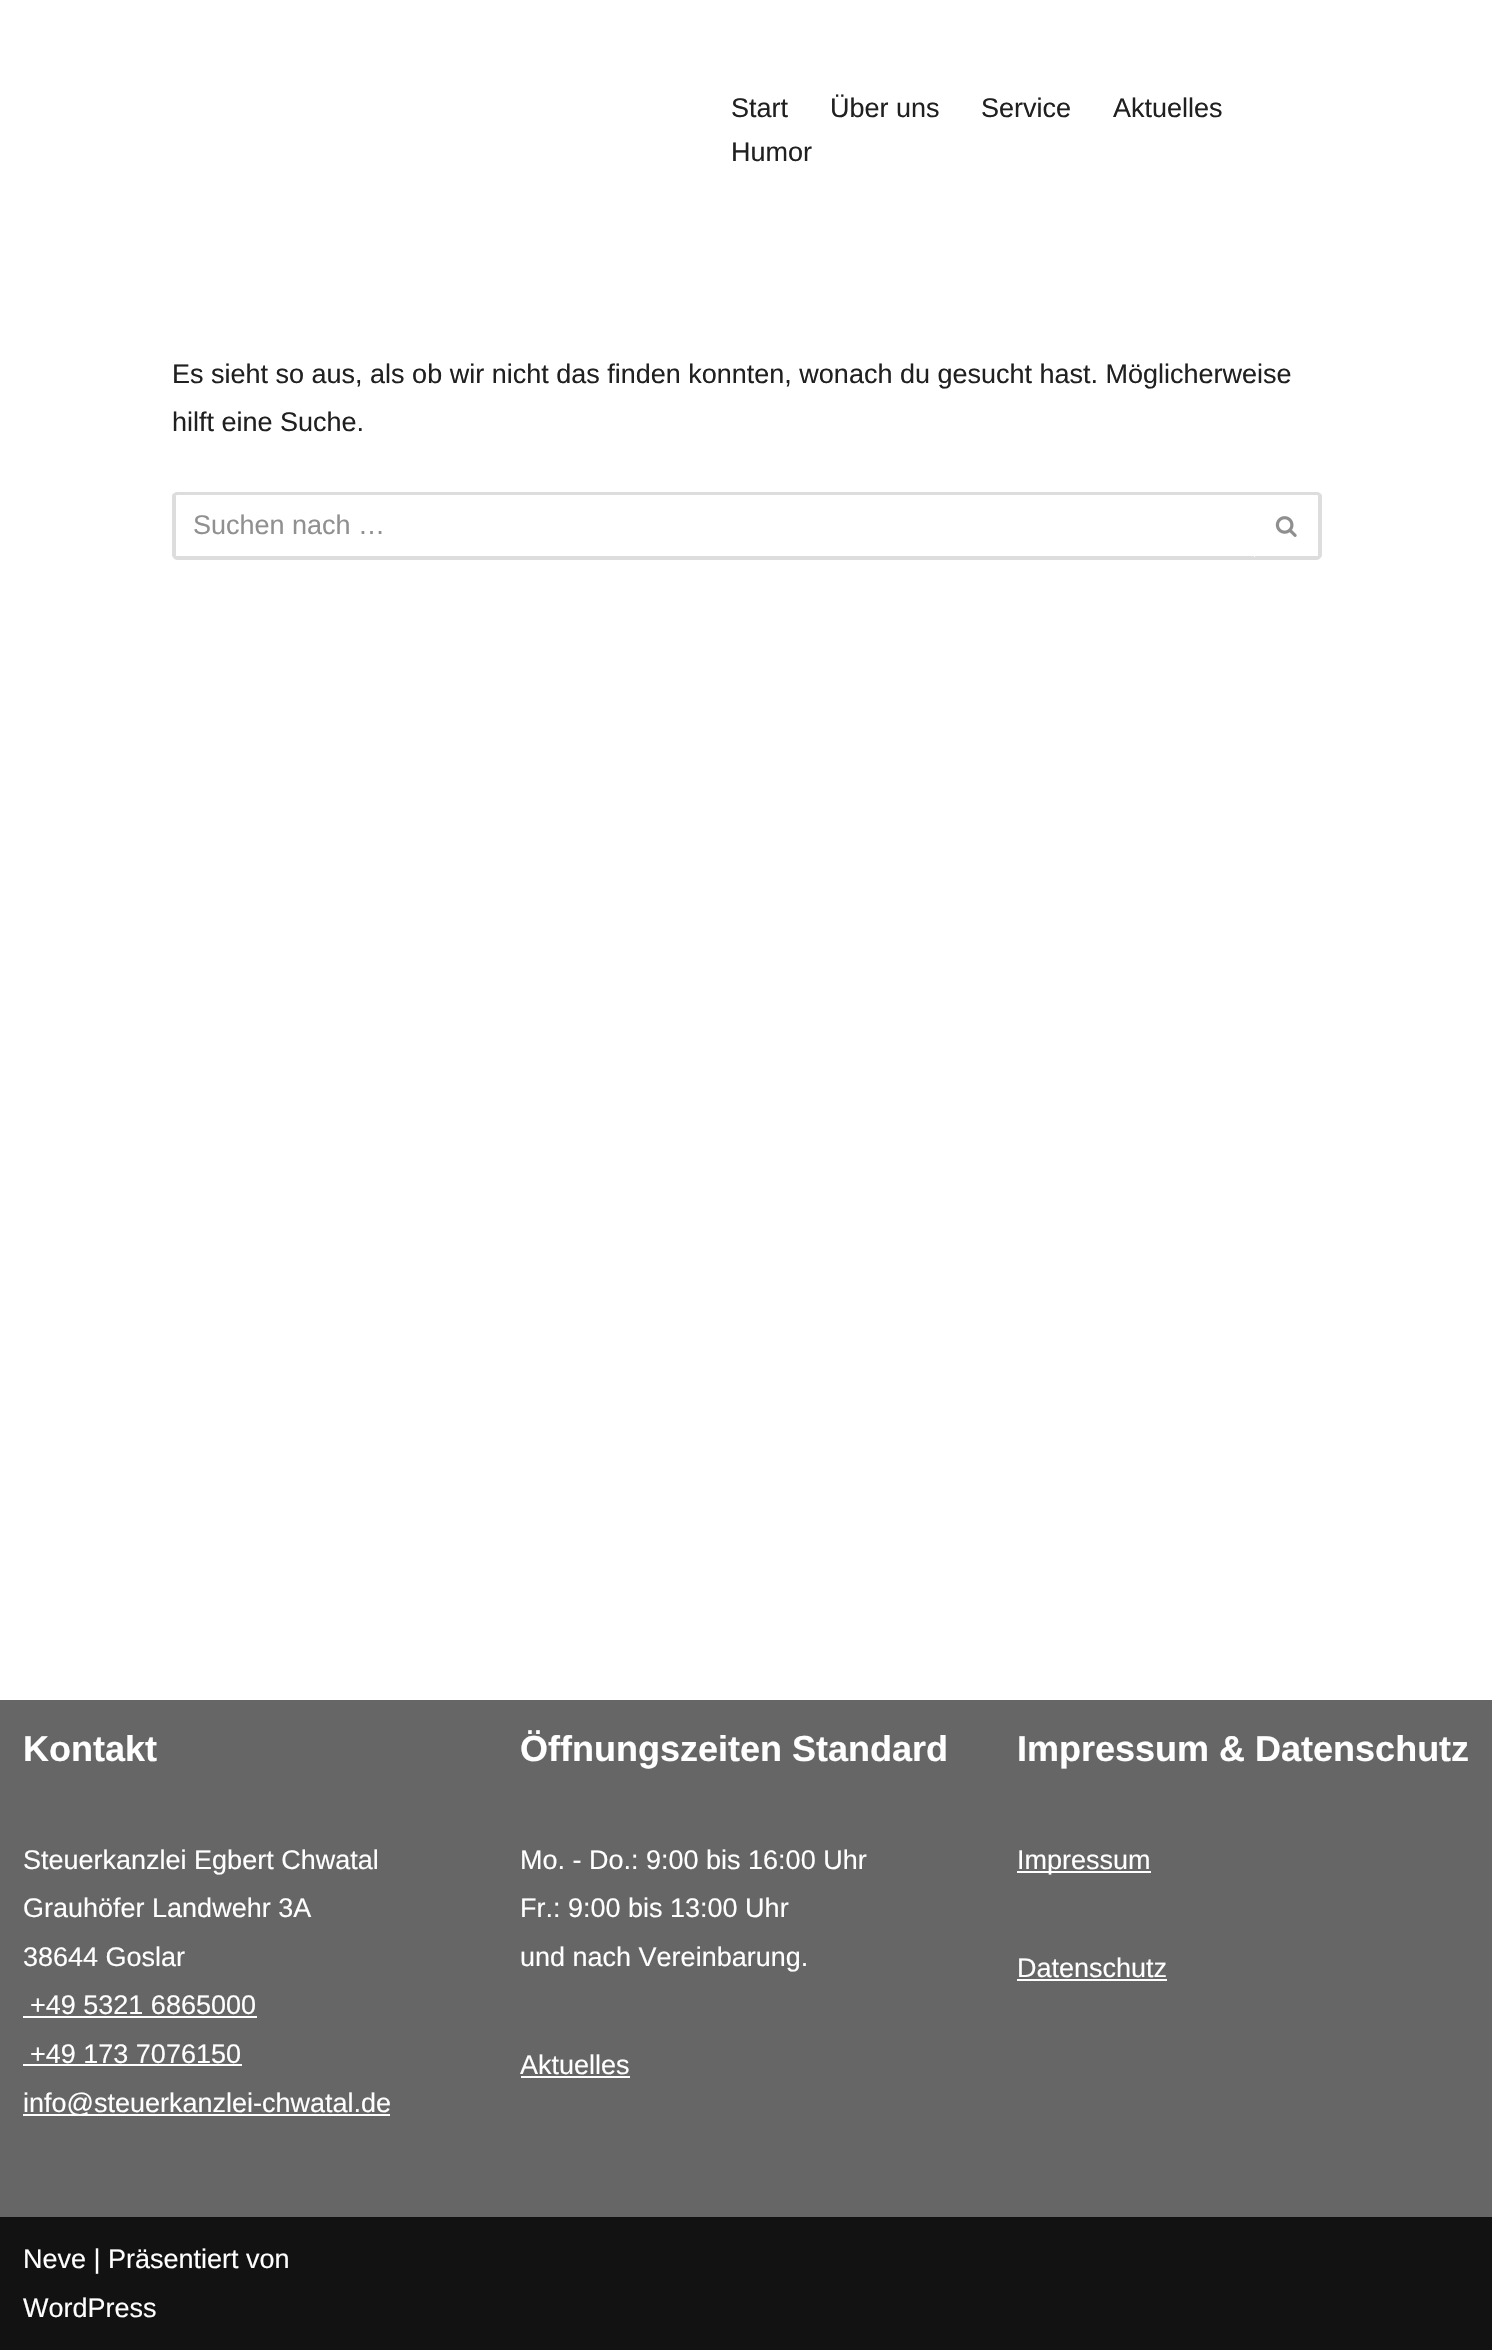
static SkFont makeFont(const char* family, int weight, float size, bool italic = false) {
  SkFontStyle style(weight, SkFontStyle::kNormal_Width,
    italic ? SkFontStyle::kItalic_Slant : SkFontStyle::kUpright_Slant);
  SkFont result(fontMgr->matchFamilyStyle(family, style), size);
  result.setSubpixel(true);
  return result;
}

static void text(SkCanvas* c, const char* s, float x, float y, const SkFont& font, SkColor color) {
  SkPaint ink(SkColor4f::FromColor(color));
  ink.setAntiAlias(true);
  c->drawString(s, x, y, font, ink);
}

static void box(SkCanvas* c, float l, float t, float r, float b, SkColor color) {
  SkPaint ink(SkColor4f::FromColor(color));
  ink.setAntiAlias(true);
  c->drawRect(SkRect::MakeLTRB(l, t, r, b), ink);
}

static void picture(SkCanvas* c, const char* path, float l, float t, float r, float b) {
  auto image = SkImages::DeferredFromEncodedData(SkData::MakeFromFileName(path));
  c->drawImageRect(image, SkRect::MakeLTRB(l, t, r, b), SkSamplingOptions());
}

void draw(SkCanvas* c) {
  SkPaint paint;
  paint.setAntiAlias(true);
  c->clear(0xffffffff);
  SkFont face1 = makeFont("Liberation Sans", 400, 27);
  text(c, "Start", 731, 117, face1, 0xff202020);
  text(c, "Über uns", 830, 117, face1, 0xff202020);
  text(c, "Service", 981, 117, face1, 0xff202020);
  text(c, "Aktuelles", 1113, 117, face1, 0xff202020);
  text(c, "Humor", 731, 161, face1, 0xff202020);
  text(c, "Es sieht so aus, als ob wir nicht das finden konnten, wonach du gesucht hast. Möglicherweise", 172, 383, face1, 0xff202020);
  text(c, "hilft eine Suche.", 172, 431, face1, 0xff202020);
  paint.setColor(0xffdddddd);
  c->drawPath(SkPathBuilder(SkPathFillType::kEvenOdd).moveTo(177, 492).lineTo(1254, 492).lineTo(1254, 560).lineTo(177, 560).cubicTo(175, 560, 172, 557, 172, 555).lineTo(172, 496).cubicTo(172, 494, 175, 492, 177, 492).close().moveTo(177, 495).lineTo(1254, 495).lineTo(1254, 556).lineTo(177, 556).cubicTo(176, 556, 176, 556, 176, 555).lineTo(176, 496).cubicTo(176, 496, 176, 495, 177, 495).close().detach(), paint);
  text(c, "Suchen nach …", 193, 534, face1, 0xff909090);
  c->drawPath(SkPathBuilder(SkPathFillType::kEvenOdd).moveTo(1254, 492).lineTo(1317, 492).cubicTo(1319, 492, 1322, 494, 1322, 496).lineTo(1322, 555).cubicTo(1322, 557, 1319, 560, 1317, 560).lineTo(1254, 560).close().moveTo(1254, 495).lineTo(1317, 495).cubicTo(1318, 495, 1318, 496, 1318, 496).lineTo(1318, 555).cubicTo(1318, 556, 1318, 556, 1317, 556).lineTo(1254, 556).close().detach(), paint);
  picture(c, "img_01.png", 1275, 516, 1297, 537);
  box(c, 1254, 556, 1255, 557, 0xffffffff);
  box(c, 0, 1700, 1492, 2217, 0xff666666);
  SkFont face2 = makeFont("Liberation Sans", 700, 36);
  text(c, "Kontakt", 23, 1761, face2, 0xffffffff);
  text(c, "Steuerkanzlei Egbert Chwatal", 23, 1869, face1, 0xffffffff);
  text(c, "Grauhöfer Landwehr 3A", 23, 1917, face1, 0xffffffff);
  text(c, "38644 Goslar", 23, 1966, face1, 0xffffffff);
  text(c, "+49 5321 6865000", 30, 2014, face1, 0xffffffff);
  box(c, 23, 2016, 257, 2018, 0xffffffff);
  text(c, "+49 173 7076150", 30, 2063, face1, 0xffffffff);
  box(c, 23, 2064, 242, 2066, 0xffffffff);
  box(c, 23, 2114, 390, 2116, 0xffffffff);
  text(c, "info@steuerkanzlei-chwatal.de", 23, 2112, face1, 0xffffffff);
  text(c, "Öffnungszeiten Standard", 520, 1761, face2, 0xffffffff);
  text(c, "Mo. - Do.: 9:00 bis 16:00 Uhr", 520, 1869, face1, 0xffffffff);
  text(c, "Fr.: 9:00 bis 13:00 Uhr", 520, 1917, face1, 0xffffffff);
  text(c, "und nach Vereinbarung.", 520, 1966, face1, 0xffffffff);
  text(c, "Aktuelles", 520, 2074, face1, 0xffffffff);
  box(c, 521, 2076, 630, 2078, 0xffffffff);
  text(c, "Impressum & Datenschutz", 1017, 1761, face2, 0xffffffff);
  box(c, 1017, 1871, 1151, 1873, 0xffffffff);
  text(c, "Impressum", 1017, 1869, face1, 0xffffffff);
  text(c, "Datenschutz", 1017, 1977, face1, 0xffffffff);
  box(c, 1017, 1979, 1167, 1981, 0xffffffff);
  box(c, 0, 2217, 1492, 2350, 0xff121212);
  text(c, "Neve | Präsentiert von", 23, 2268, face1, 0xffffffff);
  text(c, "WordPress", 23, 2317, face1, 0xffffffff);
}
